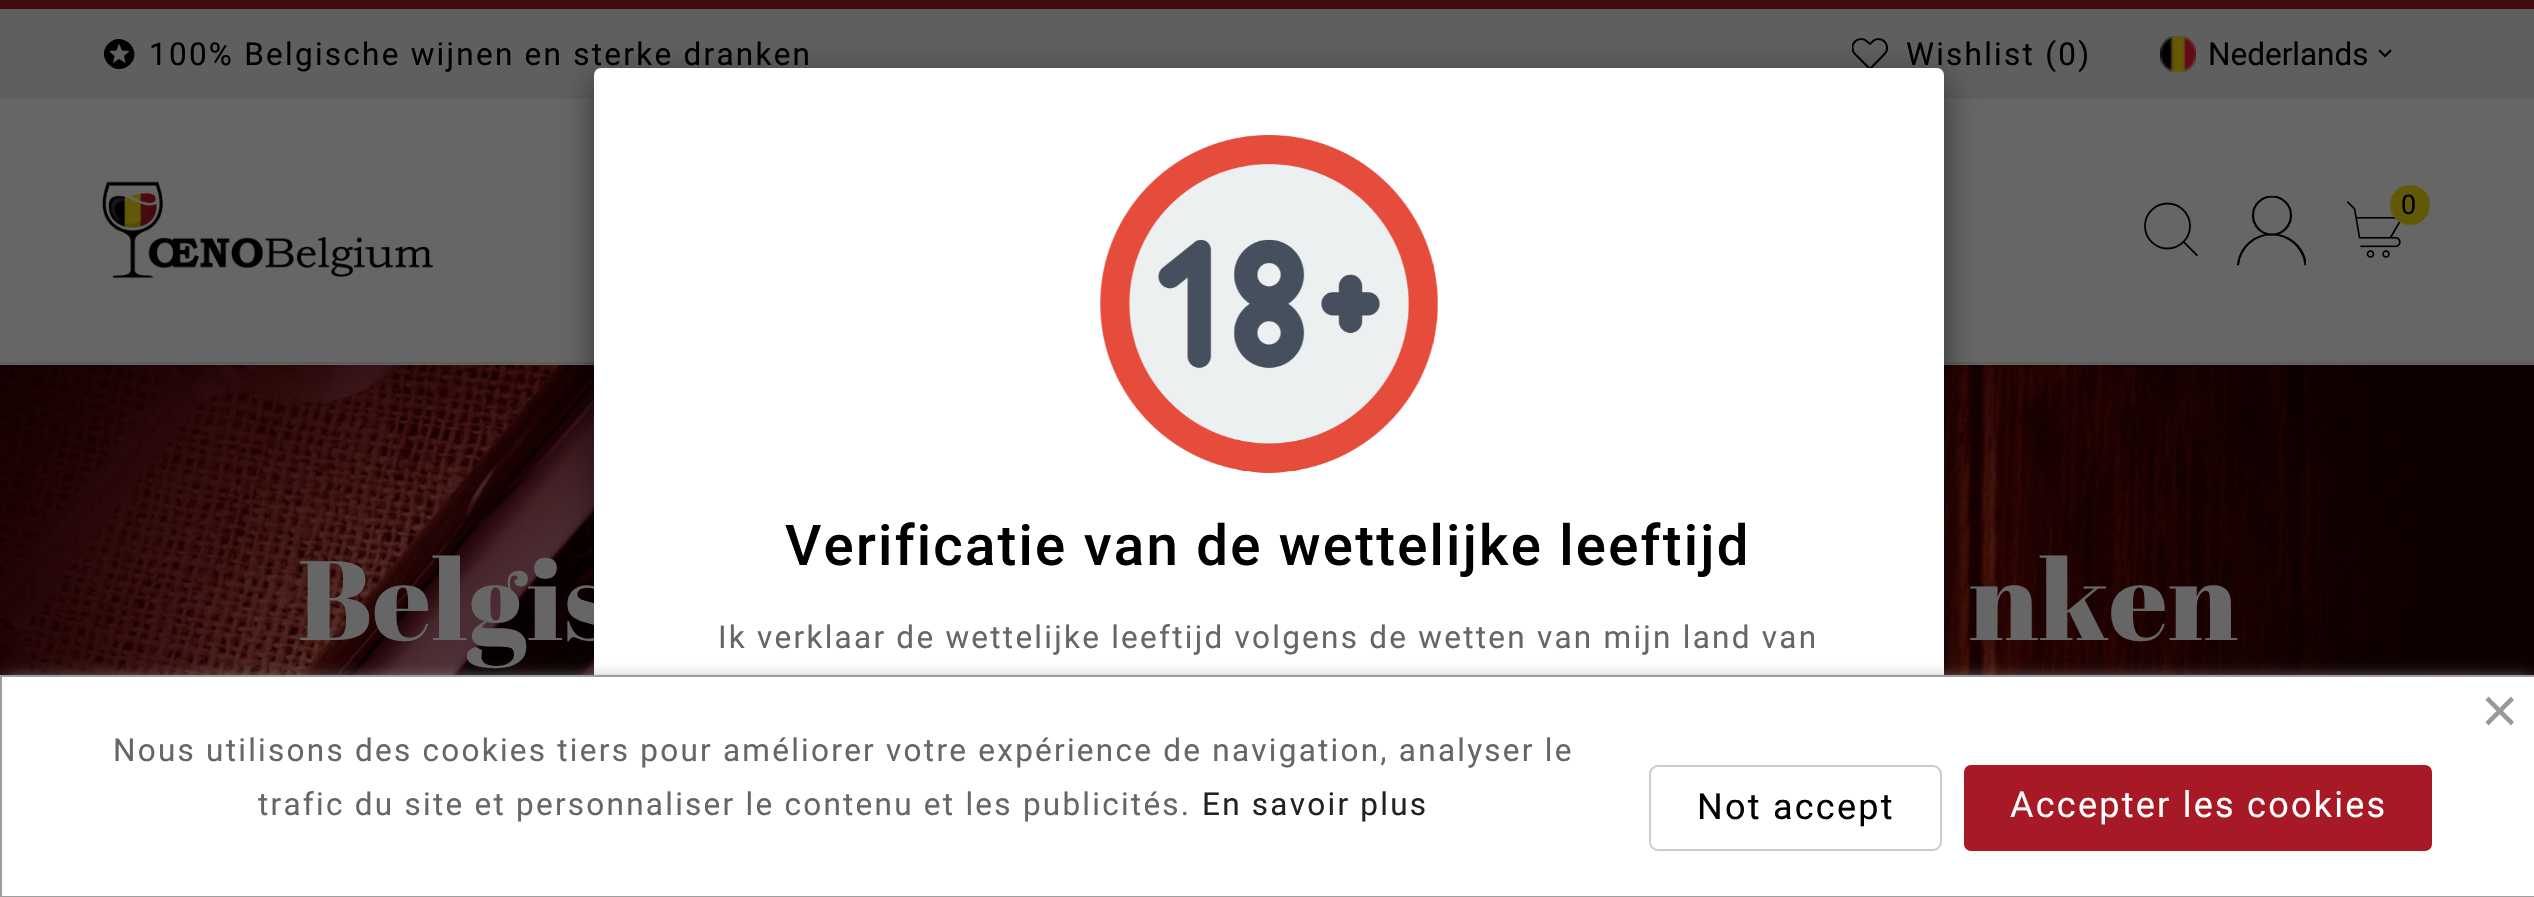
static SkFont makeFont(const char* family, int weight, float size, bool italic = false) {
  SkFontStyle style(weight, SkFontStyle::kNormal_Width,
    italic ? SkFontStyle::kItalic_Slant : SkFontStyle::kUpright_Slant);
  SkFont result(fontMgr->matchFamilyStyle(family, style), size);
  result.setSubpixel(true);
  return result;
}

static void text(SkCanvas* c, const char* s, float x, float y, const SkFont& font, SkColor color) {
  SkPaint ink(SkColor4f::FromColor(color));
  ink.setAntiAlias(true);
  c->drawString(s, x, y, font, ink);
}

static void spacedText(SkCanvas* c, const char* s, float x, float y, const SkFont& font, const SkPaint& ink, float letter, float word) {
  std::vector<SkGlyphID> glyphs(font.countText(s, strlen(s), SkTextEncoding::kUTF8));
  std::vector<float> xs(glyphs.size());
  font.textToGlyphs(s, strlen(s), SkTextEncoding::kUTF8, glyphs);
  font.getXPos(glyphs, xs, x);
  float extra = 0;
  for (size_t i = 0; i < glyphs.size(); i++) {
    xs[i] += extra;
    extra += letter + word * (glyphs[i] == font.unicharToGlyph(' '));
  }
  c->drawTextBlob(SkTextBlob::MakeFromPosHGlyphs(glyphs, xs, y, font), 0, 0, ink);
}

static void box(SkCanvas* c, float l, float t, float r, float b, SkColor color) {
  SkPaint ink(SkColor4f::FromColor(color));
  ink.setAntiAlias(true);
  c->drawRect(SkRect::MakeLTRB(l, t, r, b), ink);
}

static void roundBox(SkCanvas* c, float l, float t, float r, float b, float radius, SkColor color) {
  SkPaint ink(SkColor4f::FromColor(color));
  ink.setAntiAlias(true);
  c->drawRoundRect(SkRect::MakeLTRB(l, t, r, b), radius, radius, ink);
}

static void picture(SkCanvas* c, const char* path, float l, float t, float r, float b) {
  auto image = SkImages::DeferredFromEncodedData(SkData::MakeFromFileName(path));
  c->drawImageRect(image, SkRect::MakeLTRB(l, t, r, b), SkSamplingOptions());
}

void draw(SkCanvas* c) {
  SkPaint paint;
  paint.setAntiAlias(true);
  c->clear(0xffffffff);
  box(c, 0, 99, 2534, 365, 0xff666666);
  box(c, 0, 0, 2534, 9, 0xff430a0f);
  box(c, 0, 362, 2534, 364, 0xff5c5c5c);
  box(c, 0, 9, 2534, 99, 0xff5f5f5f);
  paint.setColor(0xff000000);
  c->drawPath(SkPathBuilder().moveTo(125.5f, 63).lineTo(124, 56).lineTo(129.5f, 51).lineTo(122, 50.5f).lineTo(119, 43.5f).lineTo(116.5f, 50.5f).lineTo(109, 51).lineTo(114.5f, 56).lineTo(113, 63).lineTo(119, 59).close().moveTo(108.5f, 43.5f).cubicTo(122.5f, 29.5f, 144, 50.5f, 130, 64.5f).cubicTo(116, 78.5f, 94.5f, 57.5f, 108.5f, 43.5f).close().detach(), paint);
  SkFont face1 = makeFont("Roboto", 400, 31.5f);
  spacedText(c, "100% Belgische wijnen en sterke dranken", 149, 65, face1, paint, 2.25f, 0);
  c->save();
  c->clipRect(SkRect::MakeLTRB(1852, 36, 1888, 72));
  paint.setStyle(SkPaint::kStroke_Style);
  paint.setStrokeWidth(2);
  c->drawPath(SkPathBuilder().moveTo(1884.5f, 41.5f).cubicTo(1881, 38, 1875.5f, 38, 1872.5f, 41.5f).lineTo(1870, 44).lineTo(1867, 41.5f).cubicTo(1864, 38, 1858.5f, 38, 1855, 41.5f).cubicTo(1851.5f, 45, 1851.5f, 50.5f, 1855, 54).lineTo(1870, 69).lineTo(1884.5f, 54).cubicTo(1888, 50.5f, 1888, 45, 1884.5f, 41.5f).close().detach(), paint);
  c->restore();
  paint.setStyle(SkPaint::kFill_Style);
  spacedText(c, "Wishlist (0)", 1906, 65, face1, paint, 2.25f, 0);
  picture(c, "img_01.png", 2160, 36, 2196, 72);
  text(c, "Nederlands", 2208, 65, face1, 0xff000000);
  picture(c, "img_02.png", 2378, 49, 2392, 58);
  picture(c, "img_03.png", 102, 181, 434, 279);
  c->drawPath(SkPathBuilder().moveTo(2197, 256.5f).lineTo(2183, 242.5f).lineTo(2184.5f, 241.5f).lineTo(2198, 255).close().detach(), paint);
  paint.setStyle(SkPaint::kStroke_Style);
  paint.setStrokeWidth(1.8f);
  c->drawCircle(2167.5f, 226, 22.5f, paint);
  c->save();
  c->clipRect(SkRect::MakeLTRB(2237, 196, 2306, 266));
  paint.setStrokeWidth(1.3f);
  c->drawPath(SkPathBuilder().moveTo(2271.5f, 234.5f).cubicTo(2289, 234.5f, 2303, 248, 2305, 264.5f).lineTo(2306.5f, 264.5f).cubicTo(2300, 224, 2243.5f, 224, 2237.5f, 264.5f).lineTo(2238.5f, 264.5f).cubicTo(2240.5f, 248, 2254.5f, 234.5f, 2271.5f, 234.5f).close().detach(), paint);
  c->restore();
  paint.setStyle(SkPaint::kFill_Style);
  paint.setColor(0xff666666);
  c->drawPath(SkPathBuilder().moveTo(2272, 234).cubicTo(2261.5f, 234, 2253.5f, 226, 2253.5f, 215.5f).cubicTo(2253.5f, 205.5f, 2261.5f, 197.5f, 2272, 197.5f).cubicTo(2282, 197.5f, 2290, 205.5f, 2290, 215.5f).cubicTo(2290, 226, 2282, 234, 2272, 234).detach(), paint);
  c->save();
  c->clipRect(SkRect::MakeLTRB(2237, 196, 2306, 266));
  paint.setStyle(SkPaint::kStroke_Style);
  paint.setStrokeWidth(2.2f);
  paint.setColor(0xff000000);
  c->drawCircle(2272, 215.5f, 19, paint);
  c->restore();
  picture(c, "img_04.png", 2347, 201, 2401, 258);
  paint.setStyle(SkPaint::kFill_Style);
  paint.setColor(0xff625908);
  c->drawCircle(2410, 205, 20, paint);
  SkFont face2 = makeFont("Roboto", 400, 27);
  paint.setColor(0xff000000);
  spacedText(c, "0", 2401, 214, face2, paint, 2.25f, 0);
  picture(c, "img_06.png", 0, 365, 2534, 675);
  paint.setColor(0x80000000);
  paint.setMaskFilter(SkMaskFilter::MakeBlur(kNormal_SkBlurStyle, 17));
  c->drawRoundRect(SkRect::MakeLTRB(594, 79, 1944, 896), 7, 7, paint);
  paint.setMaskFilter(nullptr);
  SkFont face3 = makeFont("Abril Fatface", 400, 112.5f);
  paint.setColor(0xff666666);
  spacedText(c, "Belgis", 298, 640, face3, paint, 0.75f, 0);
  roundBox(c, 594, 68, 1944, 884, 7, 0xffffffff);
  picture(c, "img_05.png", 1100, 135, 1438, 473);
  SkFont face4 = makeFont("Roboto", 500, 56.25f);
  paint.setColor(0xff000000);
  spacedText(c, "Verificatie van de wettelijke leeftijd", 785, 565, face4, paint, 2.25f, 0);
  paint.setColor(0xff666666);
  spacedText(c, "Ik verklaar de wettelijke leeftijd volgens de wetten van mijn land van", 718, 648, face1, paint, 2.25f, 0);
  spacedText(c, "nken", 1969, 640, face3, paint, 0.75f, 0);
  paint.setColor(0xff9e9e9e);
  paint.setMaskFilter(SkMaskFilter::MakeBlur(kNormal_SkBlurStyle, 8));
  c->drawRect(SkRect::MakeLTRB(5, 680, 2531, 893), paint);
  paint.setMaskFilter(nullptr);
  paint.setColor(0xffffffff);
  c->drawRect(SkRect::MakeLTRB(1, 676, 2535, 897), paint);
  paint.setStyle(SkPaint::kStroke_Style);
  paint.setStrokeWidth(2);
  paint.setColor(0xff9e9e9e);
  c->drawRect(SkRect::MakeLTRB(1, 676, 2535, 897), paint);
  paint.setStyle(SkPaint::kFill_Style);
  paint.setColor(0xff999999);
  c->drawPath(SkPathBuilder().moveTo(2485.5f, 722).lineTo(2511, 696.5f).lineTo(2514, 700).lineTo(2488.5f, 725.5f).close().detach(), paint);
  c->drawPath(SkPathBuilder().moveTo(2488.5f, 696.5f).lineTo(2514, 722).lineTo(2511, 725.5f).lineTo(2485.5f, 700).close().detach(), paint);
  paint.setColor(0xff666666);
  spacedText(c, "Nous utilisons des cookies tiers pour améliorer votre expérience de navigation, analyser le", 113, 761, face1, paint, 2.25f, 0);
  spacedText(c, "trafic du site et personnaliser le contenu et les publicités.", 258, 815, face1, paint, 2.25f, 0);
  paint.setColor(0xff222222);
  spacedText(c, "En savoir plus", 1202, 815, face1, paint, 2.25f, 0);
  paint.setStyle(SkPaint::kStroke_Style);
  paint.setColor(0xffcccccc);
  c->drawRoundRect(SkRect::MakeLTRB(1650, 766, 1941, 850), 8, 8, paint);
  SkFont face5 = makeFont("Roboto", 400, 36);
  paint.setStyle(SkPaint::kFill_Style);
  paint.setColor(0xff000000);
  spacedText(c, "Not accept", 1697, 819, face5, paint, 2.25f, 0);
  roundBox(c, 1964, 765, 2432, 851, 7, 0xffa71a25);
  paint.setColor(0xffffffff);
  spacedText(c, "Accepter les cookies", 2010, 817, face5, paint, 2.25f, 0);
}
